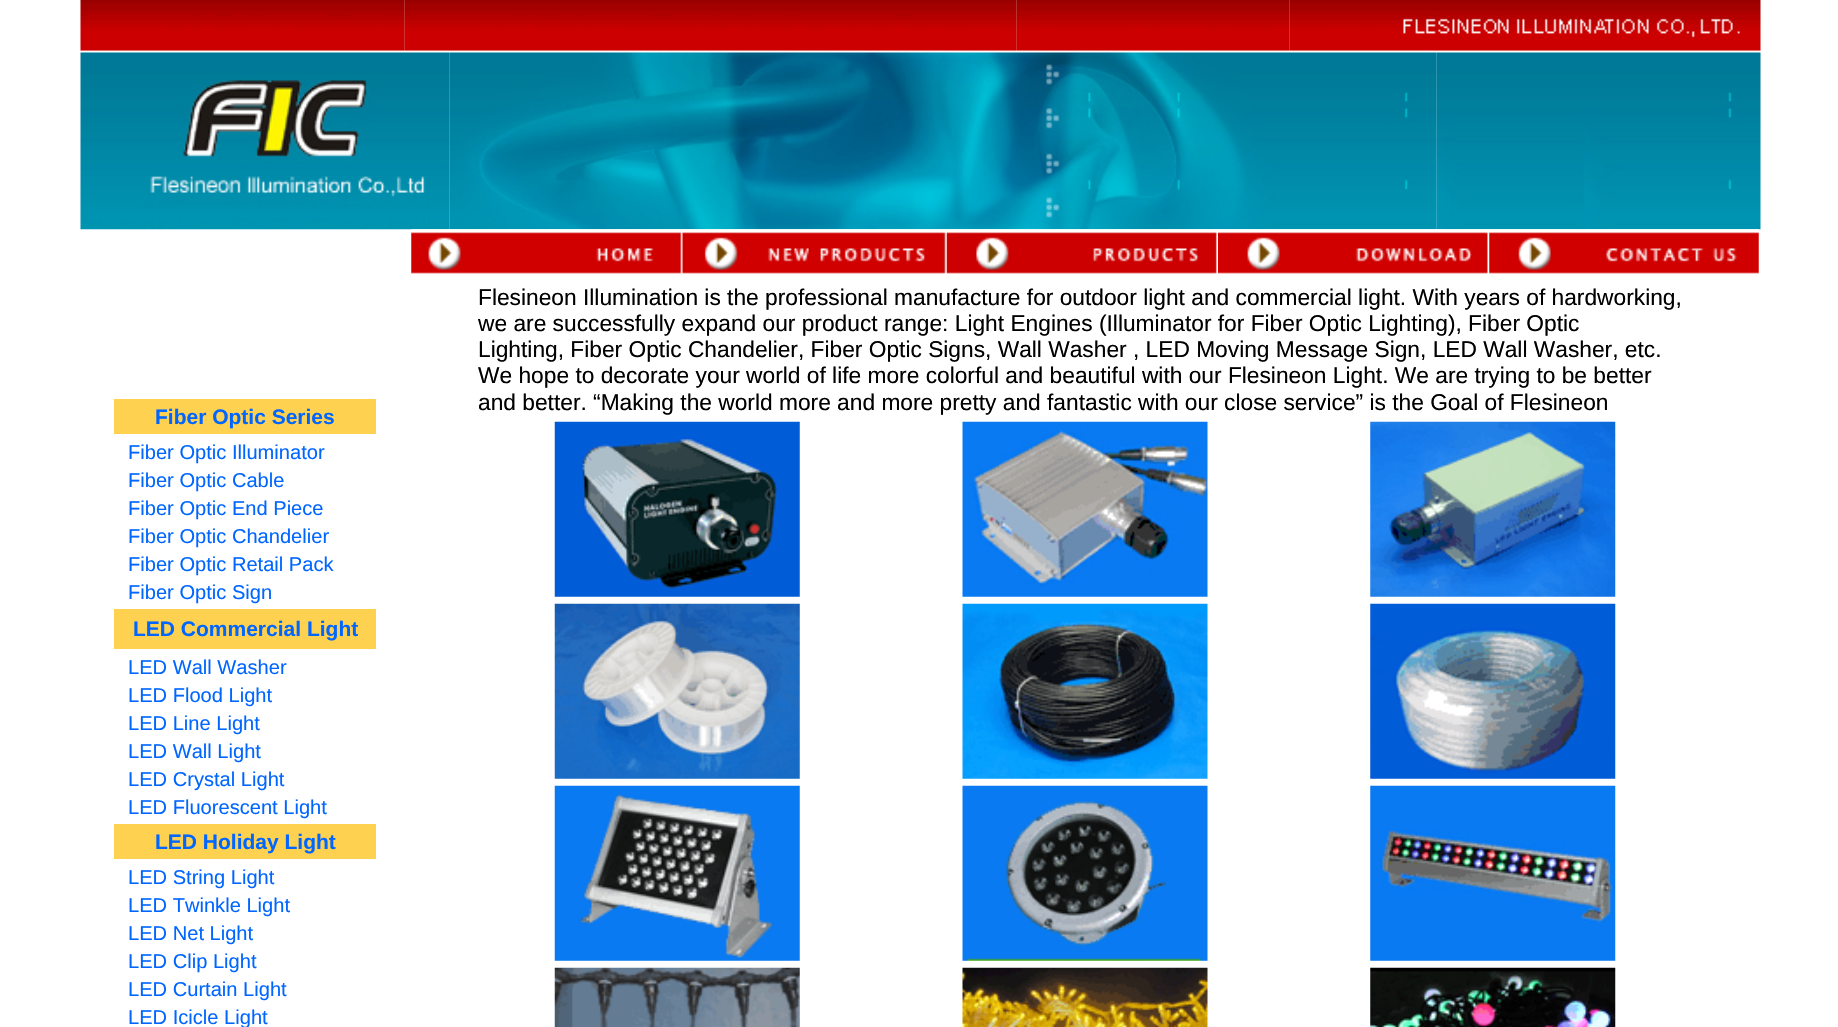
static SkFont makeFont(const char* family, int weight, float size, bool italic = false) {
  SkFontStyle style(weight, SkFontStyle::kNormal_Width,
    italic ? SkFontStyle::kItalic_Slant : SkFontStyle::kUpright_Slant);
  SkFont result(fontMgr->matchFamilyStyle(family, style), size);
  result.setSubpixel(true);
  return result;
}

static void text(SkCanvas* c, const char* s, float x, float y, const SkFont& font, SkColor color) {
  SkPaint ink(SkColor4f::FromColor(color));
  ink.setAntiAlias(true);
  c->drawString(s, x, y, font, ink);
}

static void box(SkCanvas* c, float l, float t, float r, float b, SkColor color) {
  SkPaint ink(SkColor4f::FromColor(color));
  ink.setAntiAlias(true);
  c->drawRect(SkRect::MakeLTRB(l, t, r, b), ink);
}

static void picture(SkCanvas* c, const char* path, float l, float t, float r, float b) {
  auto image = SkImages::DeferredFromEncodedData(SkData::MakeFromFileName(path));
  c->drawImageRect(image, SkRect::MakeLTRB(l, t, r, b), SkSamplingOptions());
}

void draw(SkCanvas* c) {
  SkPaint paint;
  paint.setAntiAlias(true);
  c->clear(0xffffffff);
  picture(c, "img_01.png", 80, 0, 405, 51);
  picture(c, "img_02.png", 404, 0, 1017, 51);
  picture(c, "img_03.png", 1016, 0, 1290, 51);
  picture(c, "img_04.png", 1289, 0, 1761, 51);
  picture(c, "img_05.png", 80, 50, 450, 230);
  picture(c, "img_06.png", 449, 50, 1437, 230);
  picture(c, "img_07.png", 1436, 50, 1761, 230);
  picture(c, "img_08.png", 411, 229, 683, 275);
  picture(c, "img_09.png", 682, 229, 947, 274);
  picture(c, "img_10.png", 946, 229, 1218, 274);
  picture(c, "img_11.png", 1218, 229, 1490, 274);
  picture(c, "img_12.png", 1489, 229, 1759, 274);
  SkFont face1 = makeFont("Liberation Sans", 400, 22.75f);
  text(c, "Flesineon Illumination is the professional manufacture for outdoor light and commercial light. With years of hardworking,", 478, 305, face1, 0xff000000);
  text(c, "we are successfully expand our product range: Light Engines (Illuminator for Fiber Optic Lighting), Fiber Optic", 478, 331, face1, 0xff000000);
  text(c, "Lighting, Fiber Optic Chandelier, Fiber Optic Signs, Wall Washer , LED Moving Message Sign, LED Wall Washer, etc.", 478, 357, face1, 0xff000000);
  text(c, "We hope to decorate your world of life more colorful and beautiful with our Flesineon Light. We are trying to be better", 478, 383, face1, 0xff000000);
  text(c, "and better. “Making the world more and more pretty and fantastic with our close service” is the Goal of Flesineon", 478, 410, face1, 0xff000000);
  picture(c, "img_13.png", 554, 421, 800, 597);
  picture(c, "img_14.png", 962, 421, 1208, 597);
  picture(c, "img_15.png", 1370, 421, 1616, 597);
  picture(c, "img_16.png", 554, 603, 800, 779);
  picture(c, "img_17.png", 962, 603, 1208, 779);
  picture(c, "img_18.png", 1370, 603, 1616, 779);
  picture(c, "img_19.png", 554, 785, 800, 961);
  picture(c, "img_20.png", 962, 785, 1208, 961);
  picture(c, "img_21.png", 1370, 785, 1616, 961);
  picture(c, "img_22.png", 554, 967, 800, 1027);
  picture(c, "img_23.png", 962, 967, 1208, 1027);
  picture(c, "img_24.png", 1370, 967, 1616, 1027);
  box(c, 114, 399, 376, 434, 0xffffd150);
  SkFont face2 = makeFont("Liberation Sans", 700, 21);
  text(c, "Fiber Optic Series", 155, 424, face2, 0xff0066ff);
  SkFont face3 = makeFont("Liberation Sans", 400, 20.1f);
  text(c, "Fiber Optic Illuminator", 128, 459, face3, 0xff0066ff);
  text(c, "Fiber Optic Cable", 128, 487, face3, 0xff0066ff);
  text(c, "Fiber Optic End Piece", 128, 515, face3, 0xff0066ff);
  text(c, "Fiber Optic Chandelier", 128, 543, face3, 0xff0066ff);
  text(c, "Fiber Optic Retail Pack", 128, 571, face3, 0xff0066ff);
  text(c, "Fiber Optic Sign", 128, 599, face3, 0xff0066ff);
  box(c, 114, 609, 376, 649, 0xffffd150);
  text(c, "LED Commercial Light", 133, 636, face2, 0xff0066ff);
  text(c, "LED Wall Washer", 128, 674, face3, 0xff0066ff);
  text(c, "LED Flood Light", 128, 702, face3, 0xff0066ff);
  text(c, "LED Line Light", 128, 730, face3, 0xff0066ff);
  text(c, "LED Wall Light", 128, 758, face3, 0xff0066ff);
  text(c, "LED Crystal Light", 128, 786, face3, 0xff0066ff);
  text(c, "LED Fluorescent Light", 128, 814, face3, 0xff0066ff);
  box(c, 114, 824, 376, 859, 0xffffd150);
  text(c, "LED Holiday Light", 155, 849, face2, 0xff0066ff);
  text(c, "LED String Light", 128, 884, face3, 0xff0066ff);
  text(c, "LED Twinkle Light", 128, 912, face3, 0xff0066ff);
  text(c, "LED Net Light", 128, 940, face3, 0xff0066ff);
  text(c, "LED Clip Light", 128, 968, face3, 0xff0066ff);
  text(c, "LED Curtain Light", 128, 996, face3, 0xff0066ff);
  text(c, "LED Icicle Light", 128, 1024, face3, 0xff0066ff);
}
